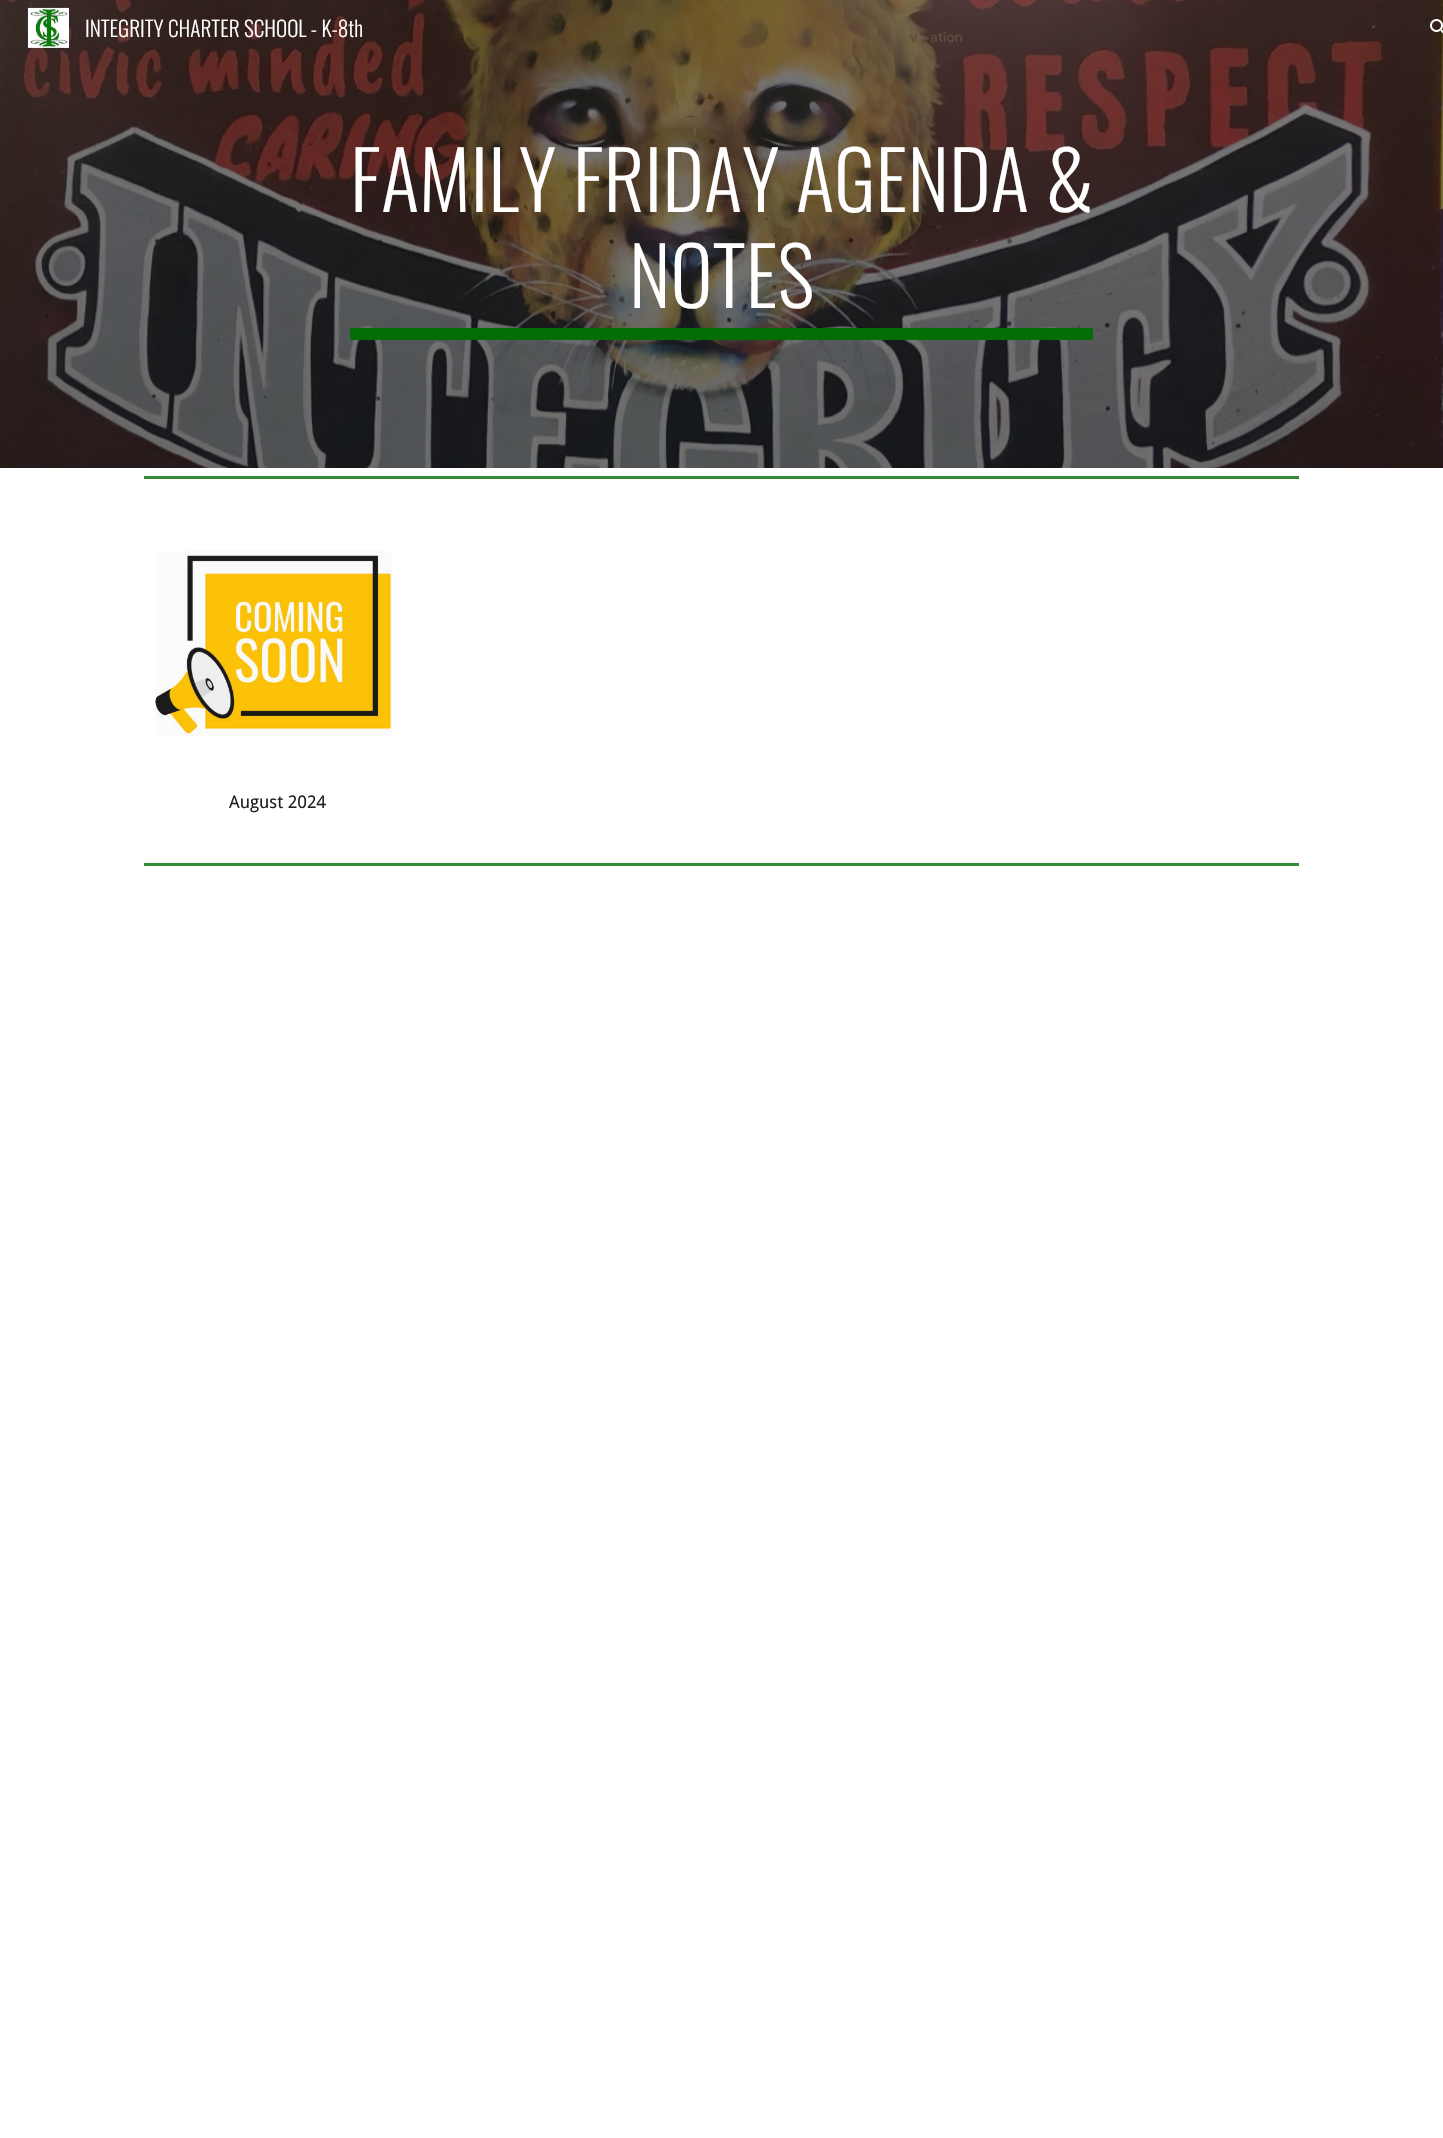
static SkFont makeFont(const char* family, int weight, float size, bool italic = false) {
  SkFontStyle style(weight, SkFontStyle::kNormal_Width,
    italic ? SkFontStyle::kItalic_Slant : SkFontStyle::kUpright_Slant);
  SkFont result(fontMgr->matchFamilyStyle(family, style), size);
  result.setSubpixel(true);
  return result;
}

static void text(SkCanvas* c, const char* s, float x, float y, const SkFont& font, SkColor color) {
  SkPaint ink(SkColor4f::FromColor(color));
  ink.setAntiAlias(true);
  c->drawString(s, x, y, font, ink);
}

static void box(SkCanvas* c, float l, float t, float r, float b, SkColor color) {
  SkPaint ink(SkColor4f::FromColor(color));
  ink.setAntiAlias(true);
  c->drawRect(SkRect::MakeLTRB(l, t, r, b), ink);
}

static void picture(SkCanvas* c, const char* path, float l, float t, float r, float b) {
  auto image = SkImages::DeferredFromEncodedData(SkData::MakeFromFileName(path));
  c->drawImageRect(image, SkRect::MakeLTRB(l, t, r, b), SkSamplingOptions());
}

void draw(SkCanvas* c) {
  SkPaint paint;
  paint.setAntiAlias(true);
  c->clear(0xffffffff);
  picture(c, "img_03.png", 0, 0, 1443, 468);
  picture(c, "img_01.png", 27, 7, 69, 48);
  SkFont face1 = makeFont("Oswald", 300, 21.3f);
  text(c, "INTEGRITY CHARTER SCHOOL - K-8th", 85, 37, face1, 0xffffffff);
  picture(c, "img_02.png", 1430, 19, 1443, 34);
  SkFont face2 = makeFont("Oswald", 300, 80);
  text(c, "FAMILY FRIDAY AGENDA &", 350, 212, face2, 0xffffffff);
  text(c, "NOTES", 629, 308, face2, 0xffffffff);
  box(c, 350, 328, 1093, 340, 0xff046d06);
  box(c, 144, 476, 1299, 479, 0xff368a38);
  picture(c, "img_04.png", 155, 551, 392, 736);
  SkFont face3 = makeFont("Droid Sans", 400, 17.5f);
  text(c, "August 2024", 229, 808, face3, 0xff212121);
  box(c, 144, 863, 1299, 866, 0xff368a38);
  SkFont face4 = makeFont("Google Sans", 500, 14);
  text(c, "v", 910, 42, face4, 0xff5e4b39);
  text(c, "ation", 930, 42, face4, 0xff5e4b39);
}
